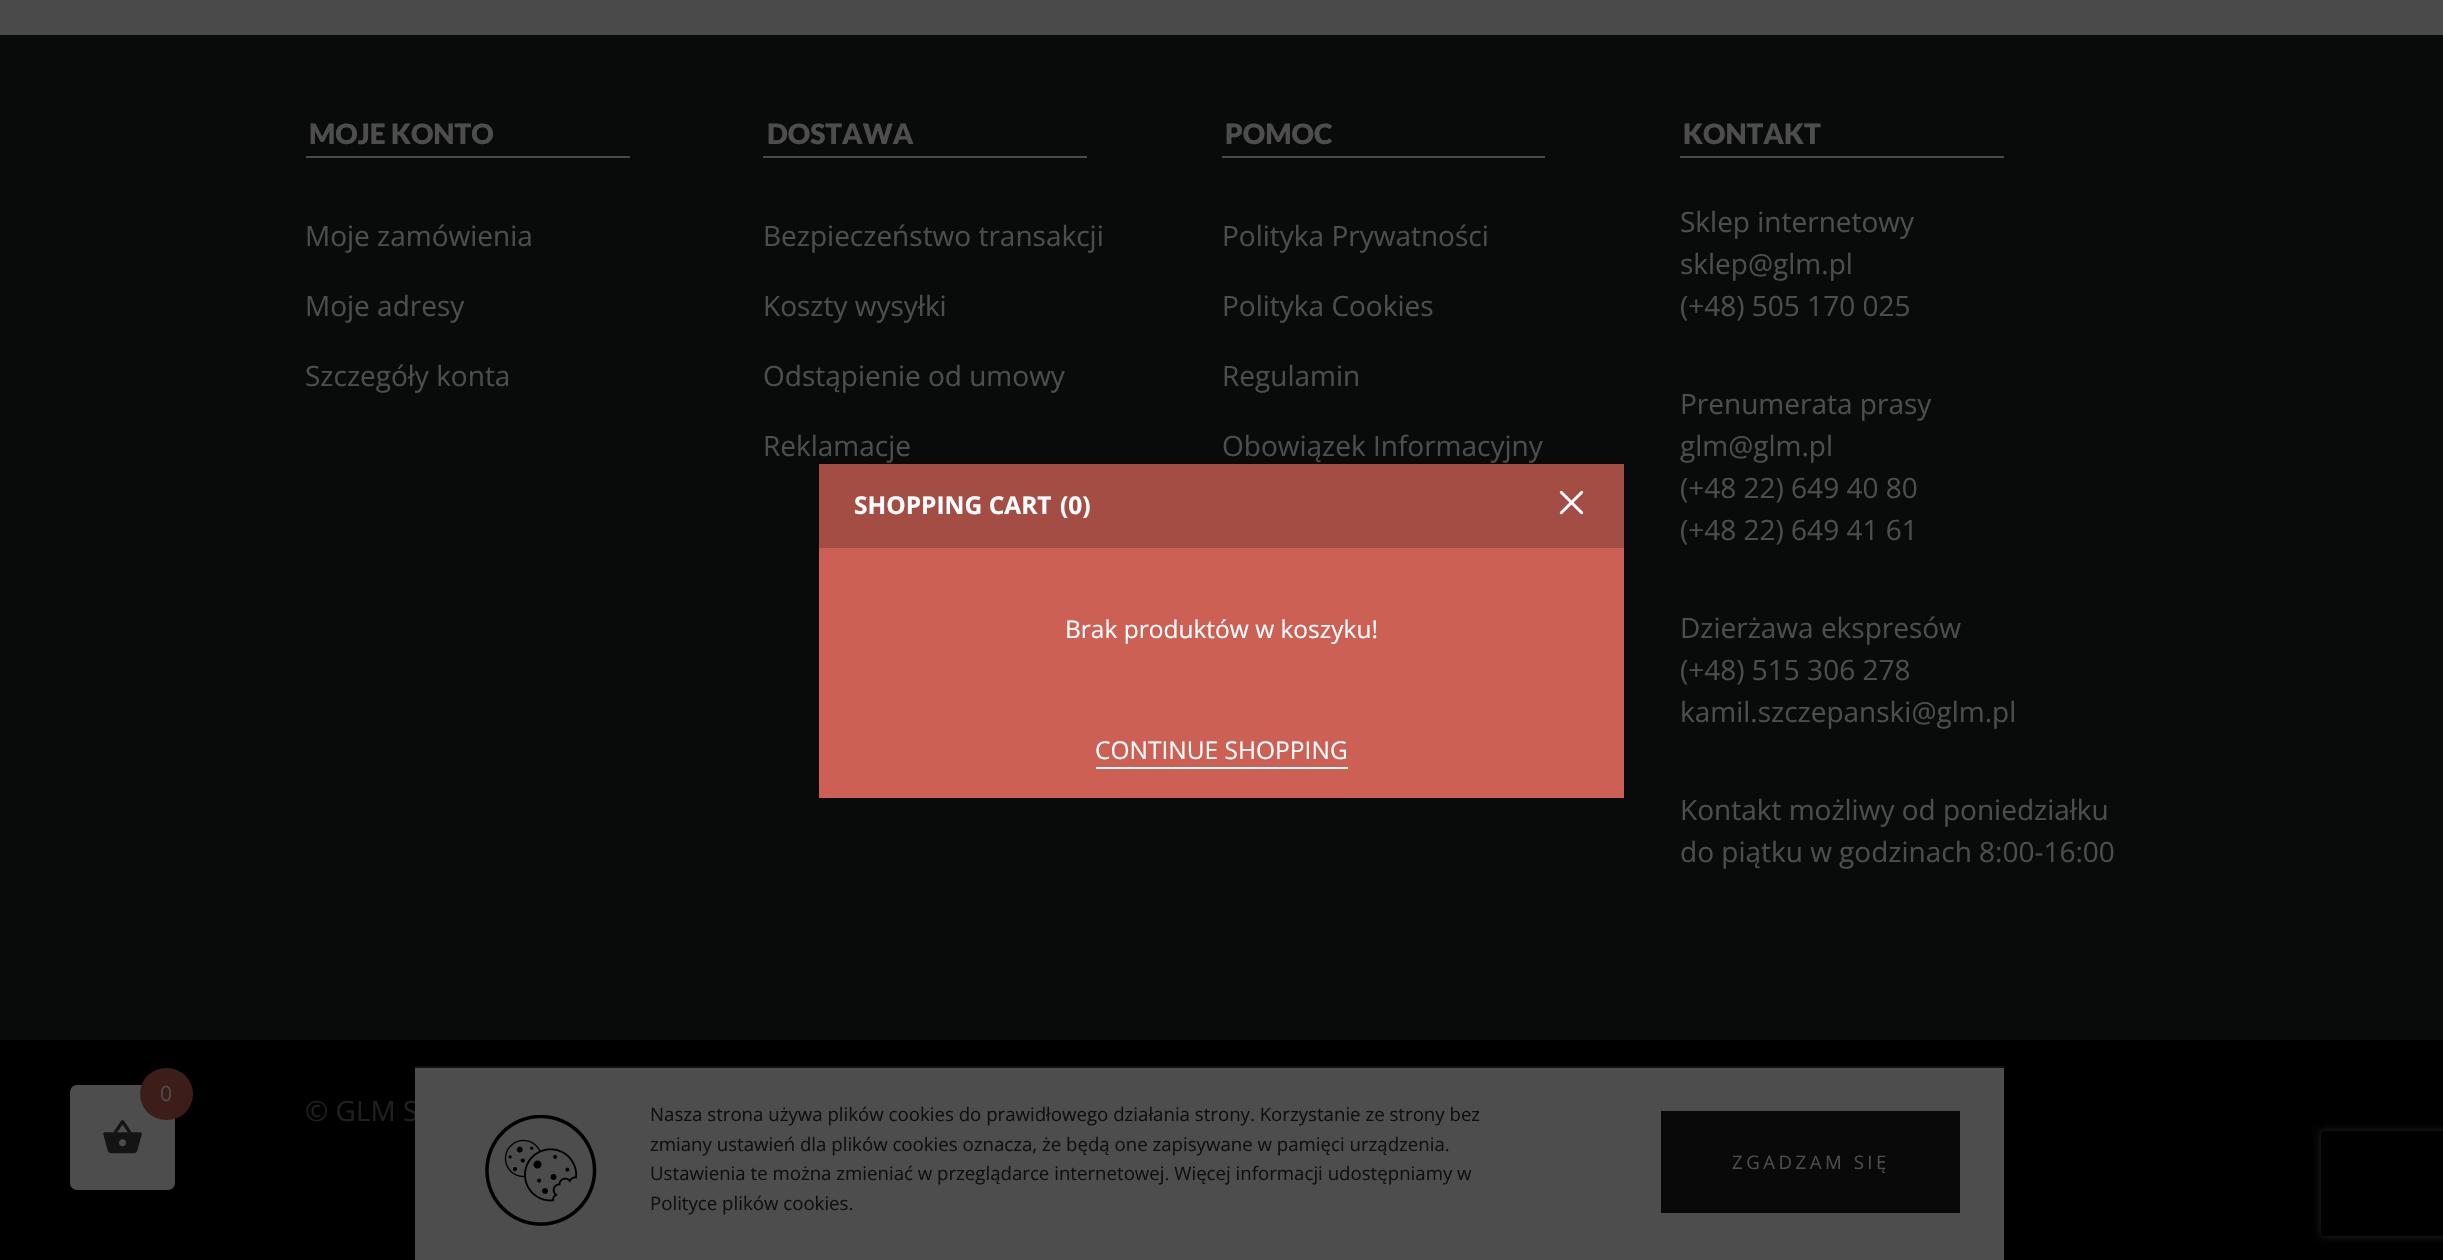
static SkFont makeFont(const char* family, int weight, float size, bool italic = false) {
  SkFontStyle style(weight, SkFontStyle::kNormal_Width,
    italic ? SkFontStyle::kItalic_Slant : SkFontStyle::kUpright_Slant);
  SkFont result(fontMgr->matchFamilyStyle(family, style), size);
  result.setSubpixel(true);
  return result;
}

static void text(SkCanvas* c, const char* s, float x, float y, const SkFont& font, SkColor color) {
  SkPaint ink(SkColor4f::FromColor(color));
  ink.setAntiAlias(true);
  c->drawString(s, x, y, font, ink);
}

static void spacedText(SkCanvas* c, const char* s, float x, float y, const SkFont& font, const SkPaint& ink, float letter, float word) {
  std::vector<SkGlyphID> glyphs(font.countText(s, strlen(s), SkTextEncoding::kUTF8));
  std::vector<float> xs(glyphs.size());
  font.textToGlyphs(s, strlen(s), SkTextEncoding::kUTF8, glyphs);
  font.getXPos(glyphs, xs, x);
  float extra = 0;
  for (size_t i = 0; i < glyphs.size(); i++) {
    xs[i] += extra;
    extra += letter + word * (glyphs[i] == font.unicharToGlyph(' '));
  }
  c->drawTextBlob(SkTextBlob::MakeFromPosHGlyphs(glyphs, xs, y, font), 0, 0, ink);
}

static void box(SkCanvas* c, float l, float t, float r, float b, SkColor color) {
  SkPaint ink(SkColor4f::FromColor(color));
  ink.setAntiAlias(true);
  c->drawRect(SkRect::MakeLTRB(l, t, r, b), ink);
}

static void roundBox(SkCanvas* c, float l, float t, float r, float b, float radius, SkColor color) {
  SkPaint ink(SkColor4f::FromColor(color));
  ink.setAntiAlias(true);
  c->drawRoundRect(SkRect::MakeLTRB(l, t, r, b), radius, radius, ink);
}

static void picture(SkCanvas* c, const char* path, float l, float t, float r, float b) {
  auto image = SkImages::DeferredFromEncodedData(SkData::MakeFromFileName(path));
  c->drawImageRect(image, SkRect::MakeLTRB(l, t, r, b), SkSamplingOptions());
}

void draw(SkCanvas* c) {
  SkPaint paint;
  paint.setAntiAlias(true);
  c->clear(0xff4a4a4a);
  box(c, 0, 35, 2443, 1040, 0xff090a0a);
  box(c, 306, 156, 630, 158, 0xff494949);
  SkFont face1 = makeFont("Lato", 900, 28);
  text(c, "MOJE KONTO", 309, 144, face1, 0xff4d4d4d);
  SkFont face2 = makeFont("Open Sans", 400, 28);
  text(c, "Moje zamówienia", 305, 246, face2, 0xff4d4d4d);
  text(c, "Moje adresy", 305, 316, face2, 0xff4d4d4d);
  text(c, "Szczegóły konta", 305, 386, face2, 0xff4d4d4d);
  box(c, 763, 156, 1087, 158, 0xff494949);
  text(c, "DOSTAWA", 767, 144, face1, 0xff4d4d4d);
  text(c, "Bezpieczeństwo transakcji", 763, 246, face2, 0xff4d4d4d);
  text(c, "Koszty wysyłki", 763, 316, face2, 0xff4d4d4d);
  text(c, "Odstąpienie od umowy", 763, 386, face2, 0xff4d4d4d);
  text(c, "Reklamacje", 763, 456, face2, 0xff4d4d4d);
  box(c, 1222, 156, 1545, 158, 0xff494949);
  text(c, "POMOC", 1225, 144, face1, 0xff4d4d4d);
  text(c, "Polityka Prywatności", 1222, 246, face2, 0xff4d4d4d);
  text(c, "Polityka Cookies", 1222, 316, face2, 0xff4d4d4d);
  text(c, "Regulamin", 1222, 386, face2, 0xff4d4d4d);
  text(c, "Obowiązek Informacyjny", 1222, 456, face2, 0xff4d4d4d);
  box(c, 1680, 156, 2004, 158, 0xff494949);
  text(c, "KONTAKT", 1683, 144, face1, 0xff4d4d4d);
  text(c, "Sklep internetowy", 1680, 232, face2, 0xff4d4d4d);
  text(c, "sklep@glm.pl", 1680, 274, face2, 0xff4d4d4d);
  text(c, "(+48) 505 170 025", 1680, 316, face2, 0xff4d4d4d);
  text(c, "Prenumerata prasy", 1680, 414, face2, 0xff4d4d4d);
  text(c, "glm@glm.pl", 1680, 456, face2, 0xff4d4d4d);
  text(c, "(+48 22) 649 40 80", 1680, 498, face2, 0xff4d4d4d);
  text(c, "(+48 22) 649 41 61", 1680, 540, face2, 0xff4d4d4d);
  text(c, "Dzierżawa ekspresów", 1680, 638, face2, 0xff4d4d4d);
  text(c, "(+48) 515 306 278", 1680, 680, face2, 0xff4d4d4d);
  text(c, "kamil.szczepanski@glm.pl", 1680, 722, face2, 0xff4d4d4d);
  text(c, "Kontakt możliwy od poniedziałku", 1680, 820, face2, 0xff4d4d4d);
  text(c, "do piątku w godzinach 8:00-16:00", 1680, 862, face2, 0xff4d4d4d);
  box(c, 0, 1040, 2443, 1260, 0xff000000);
  text(c, "© GLM S", 305, 1121, face2, 0xff202020);
  box(c, 819, 548, 1624, 798, 0xffcc6055);
  box(c, 819, 464, 1624, 548, 0xffa34d44);
  SkFont face3 = makeFont("Open Sans", 700, 24.5f);
  text(c, "SHOPPING CART", 854, 514, face3, 0xffffffff);
  text(c, "(0)", 1060, 514, face3, 0xffffffff);
  picture(c, "img_01.png", 1559, 490, 1584, 515);
  SkFont face4 = makeFont("Open Sans", 400, 24.5f);
  text(c, "Brak produktów w koszyku!", 1065, 638, face4, 0xffffffff);
  text(c, "CONTINUE SHOPPING", 1095, 759, face4, 0xffffffff);
  box(c, 1096, 767, 1348, 769, 0xffffffff);
  roundBox(c, 70, 1085, 175, 1190, 7, 0xff4d4d4d);
  roundBox(c, 140, 1068, 193, 1120, 26, 0xff3d1d1a);
  SkFont face5 = makeFont("Open Sans", 400, 21);
  text(c, "0", 160, 1101, face5, 0xff4d4d4d);
  picture(c, "img_02.png", 103, 1120, 142, 1154);
  box(c, 415, 1068, 2004, 1260, 0xff4d4d4d);
  box(c, 415, 1066, 2004, 1068, 0xff121111);
  picture(c, "img_03.png", 485, 1115, 597, 1226);
  SkFont face6 = makeFont("Open Sans", 400, 18.65f);
  text(c, "Nasza strona używa plików cookies do prawidłowego działania strony. Korzystanie ze strony bez", 650, 1121, face6, 0xff0f0f0f);
  text(c, "zmiany ustawień dla plików cookies oznacza, że będą one zapisywane w pamięci urządzenia.", 650, 1151, face6, 0xff0f0f0f);
  text(c, "Ustawienia te można zmieniać w przeglądarce internetowej. Więcej informacji udostępniamy w", 650, 1180, face6, 0xff0f0f0f);
  text(c, "Polityce plików cookies.", 650, 1210, face6, 0xff0f0f0f);
  box(c, 1661, 1111, 1960, 1213, 0xff090909);
  paint.setColor(0xff4d4d4d);
  spacedText(c, "ZGADZAM SIĘ", 1732, 1169, face6, paint, 3.5f, 0);
  c->save();
  c->clipPath(SkPathBuilder(SkPathFillType::kEvenOdd).moveTo(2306, 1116).lineTo(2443, 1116).lineTo(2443, 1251).lineTo(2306, 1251).close().moveTo(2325, 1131).lineTo(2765, 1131).cubicTo(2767, 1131, 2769, 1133, 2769, 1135).lineTo(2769, 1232).cubicTo(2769, 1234, 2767, 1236, 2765, 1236).lineTo(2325, 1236).cubicTo(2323, 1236, 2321, 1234, 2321, 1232).lineTo(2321, 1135).cubicTo(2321, 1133, 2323, 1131, 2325, 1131).close().detach(), true);
  paint.setColor(0xff262626);
  paint.setMaskFilter(SkMaskFilter::MakeBlur(kNormal_SkBlurStyle, 4.5f));
  c->drawRoundRect(SkRect::MakeLTRB(2321, 1131, 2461, 1236), 4, 4, paint);
  paint.setMaskFilter(nullptr);
  c->restore();
}
